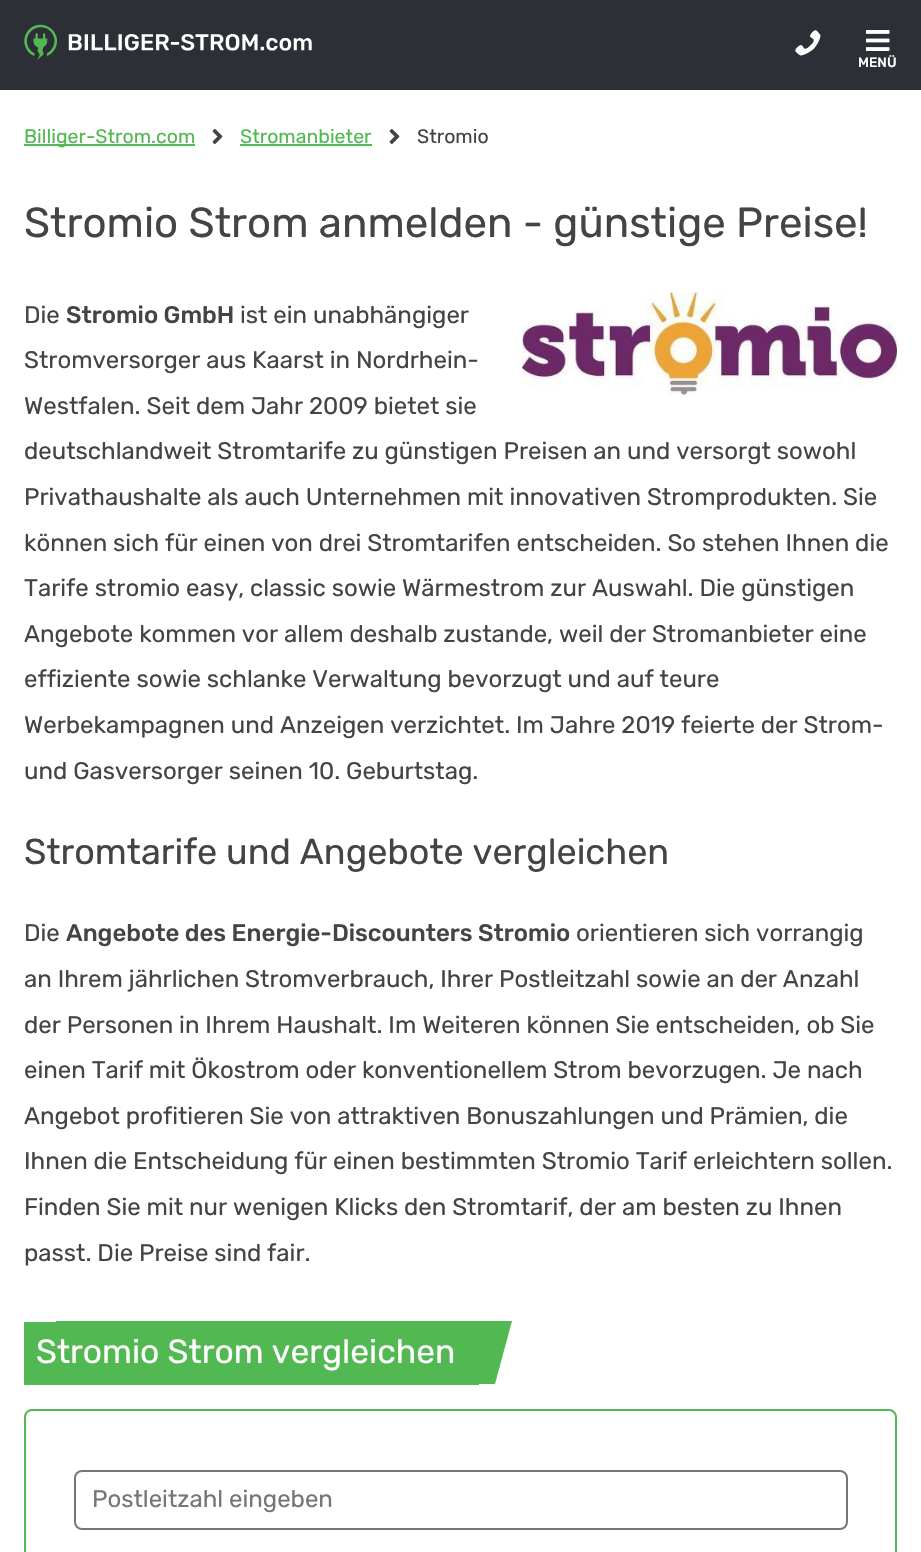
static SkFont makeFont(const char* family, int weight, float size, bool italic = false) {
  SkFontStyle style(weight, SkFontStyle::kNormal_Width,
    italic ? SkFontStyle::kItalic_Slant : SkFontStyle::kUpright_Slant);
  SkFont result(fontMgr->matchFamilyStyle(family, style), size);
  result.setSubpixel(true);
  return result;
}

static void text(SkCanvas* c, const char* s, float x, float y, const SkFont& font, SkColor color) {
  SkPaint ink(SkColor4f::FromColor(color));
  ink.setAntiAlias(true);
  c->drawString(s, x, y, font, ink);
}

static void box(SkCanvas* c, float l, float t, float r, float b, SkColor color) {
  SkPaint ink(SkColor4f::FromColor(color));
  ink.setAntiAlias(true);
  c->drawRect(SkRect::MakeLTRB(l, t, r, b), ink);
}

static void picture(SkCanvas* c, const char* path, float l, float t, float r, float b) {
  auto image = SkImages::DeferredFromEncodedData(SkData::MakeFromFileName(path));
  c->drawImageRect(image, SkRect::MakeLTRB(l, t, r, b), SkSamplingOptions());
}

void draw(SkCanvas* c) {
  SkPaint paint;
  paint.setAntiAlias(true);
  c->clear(0xffffffff);
  box(c, 0, 0, 921, 90, 0xff2c2f35);
  picture(c, "img_01.png", 24, 24, 312, 60);
  picture(c, "img_02.png", 795, 30, 821, 56);
  picture(c, "img_03.png", 866, 30, 890, 51);
  SkFont face1 = makeFont("Rubik", 500, 13.5f);
  text(c, "MENÜ", 858, 67, face1, 0xffffffff);
  box(c, 24, 144, 195, 146, 0xff52b952);
  SkFont face2 = makeFont("Rubik", 400, 19.5f);
  text(c, "Billiger-Strom.com", 24, 143, face2, 0xff52b952);
  picture(c, "img_04.png", 212, 129, 223, 144);
  text(c, "Stromanbieter", 240, 143, face2, 0xff52b952);
  box(c, 240, 144, 372, 146, 0xff52b952);
  picture(c, "img_04.png", 389, 129, 400, 144);
  text(c, "Stromio", 417, 143, face2, 0xff444444);
  SkFont face3 = makeFont("Rubik", 400, 42);
  text(c, "Stromio Strom anmelden - günstige Preise!", 24, 237, face3, 0xff444444);
  SkFont face4 = makeFont("Rubik", 400, 24);
  text(c, "Die", 24, 323, face4, 0xff444444);
  SkFont face5 = makeFont("Rubik", 500, 24);
  text(c, "Stromio GmbH", 66, 323, face5, 0xff444444);
  text(c, "ist ein unabhängiger", 240, 323, face4, 0xff444444);
  picture(c, "img_05.png", 522, 292, 897, 395);
  text(c, "Stromversorger aus Kaarst in Nordrhein-", 24, 368, face4, 0xff444444);
  text(c, "Westfalen. Seit dem Jahr 2009 bietet sie", 24, 414, face4, 0xff444444);
  text(c, "deutschlandweit Stromtarife zu günstigen Preisen an und versorgt sowohl", 24, 459, face4, 0xff444444);
  text(c, "Privathaushalte als auch Unternehmen mit innovativen Stromprodukten. Sie", 24, 505, face4, 0xff444444);
  text(c, "können sich für einen von drei Stromtarifen entscheiden. So stehen Ihnen die", 24, 551, face4, 0xff444444);
  text(c, "Tarife stromio easy, classic sowie Wärmestrom zur Auswahl. Die günstigen", 24, 596, face4, 0xff444444);
  text(c, "Angebote kommen vor allem deshalb zustande, weil der Stromanbieter eine", 24, 642, face4, 0xff444444);
  text(c, "effiziente sowie schlanke Verwaltung bevorzugt und auf teure", 24, 687, face4, 0xff444444);
  text(c, "Werbekampagnen und Anzeigen verzichtet. Im Jahre 2019 feierte der Strom-", 24, 733, face4, 0xff444444);
  text(c, "und Gasversorger seinen 10. Geburtstag.", 24, 779, face4, 0xff444444);
  SkFont face6 = makeFont("Rubik", 400, 36);
  text(c, "Stromtarife und Angebote vergleichen", 24, 864, face6, 0xff444444);
  text(c, "Die", 24, 941, face4, 0xff444444);
  text(c, "Angebote des Energie-Discounters Stromio", 66, 941, face5, 0xff444444);
  text(c, "orientieren sich vorrangig", 576, 941, face4, 0xff444444);
  text(c, "an Ihrem jährlichen Stromverbrauch, Ihrer Postleitzahl sowie an der Anzahl", 24, 987, face4, 0xff444444);
  text(c, "der Personen in Ihrem Haushalt. Im Weiteren können Sie entscheiden, ob Sie", 24, 1033, face4, 0xff444444);
  text(c, "einen Tarif mit Ökostrom oder konventionellem Strom bevorzugen. Je nach", 24, 1078, face4, 0xff444444);
  text(c, "Angebot profitieren Sie von attraktiven Bonuszahlungen und Prämien, die", 24, 1124, face4, 0xff444444);
  text(c, "Ihnen die Entscheidung für einen bestimmten Stromio Tarif erleichtern sollen.", 24, 1169, face4, 0xff444444);
  text(c, "Finden Sie mit nur wenigen Klicks den Stromtarif, der am besten zu Ihnen", 24, 1215, face4, 0xff444444);
  text(c, "passt. Die Preise sind fair.", 24, 1261, face4, 0xff444444);
  box(c, 24, 1322, 479, 1385, 0xff52b952);
  paint.setColor(0xff52b952);
  c->drawPath(SkPathBuilder().moveTo(56, 1321).lineTo(512, 1321).lineTo(511, 1323).lineTo(56, 1323).close().detach(), paint);
  SkFont face7 = makeFont("Rubik", 400, 33.6f);
  text(c, "Stromio Strom vergleichen", 36, 1363, face7, 0xffffffff);
  c->drawPath(SkPathBuilder().moveTo(464, 1321).lineTo(512, 1321).lineTo(495, 1384).lineTo(447, 1384).close().detach(), paint);
  paint.setStyle(SkPaint::kStroke_Style);
  paint.setStrokeWidth(2);
  c->drawRoundRect(SkRect::MakeLTRB(25, 1410, 896, 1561), 7, 7, paint);
  paint.setColor(0xff767676);
  c->drawRoundRect(SkRect::MakeLTRB(75, 1471, 847, 1529), 7, 7, paint);
  text(c, "Postleitzahl eingeben", 92, 1507, face4, 0xff767676);
}
